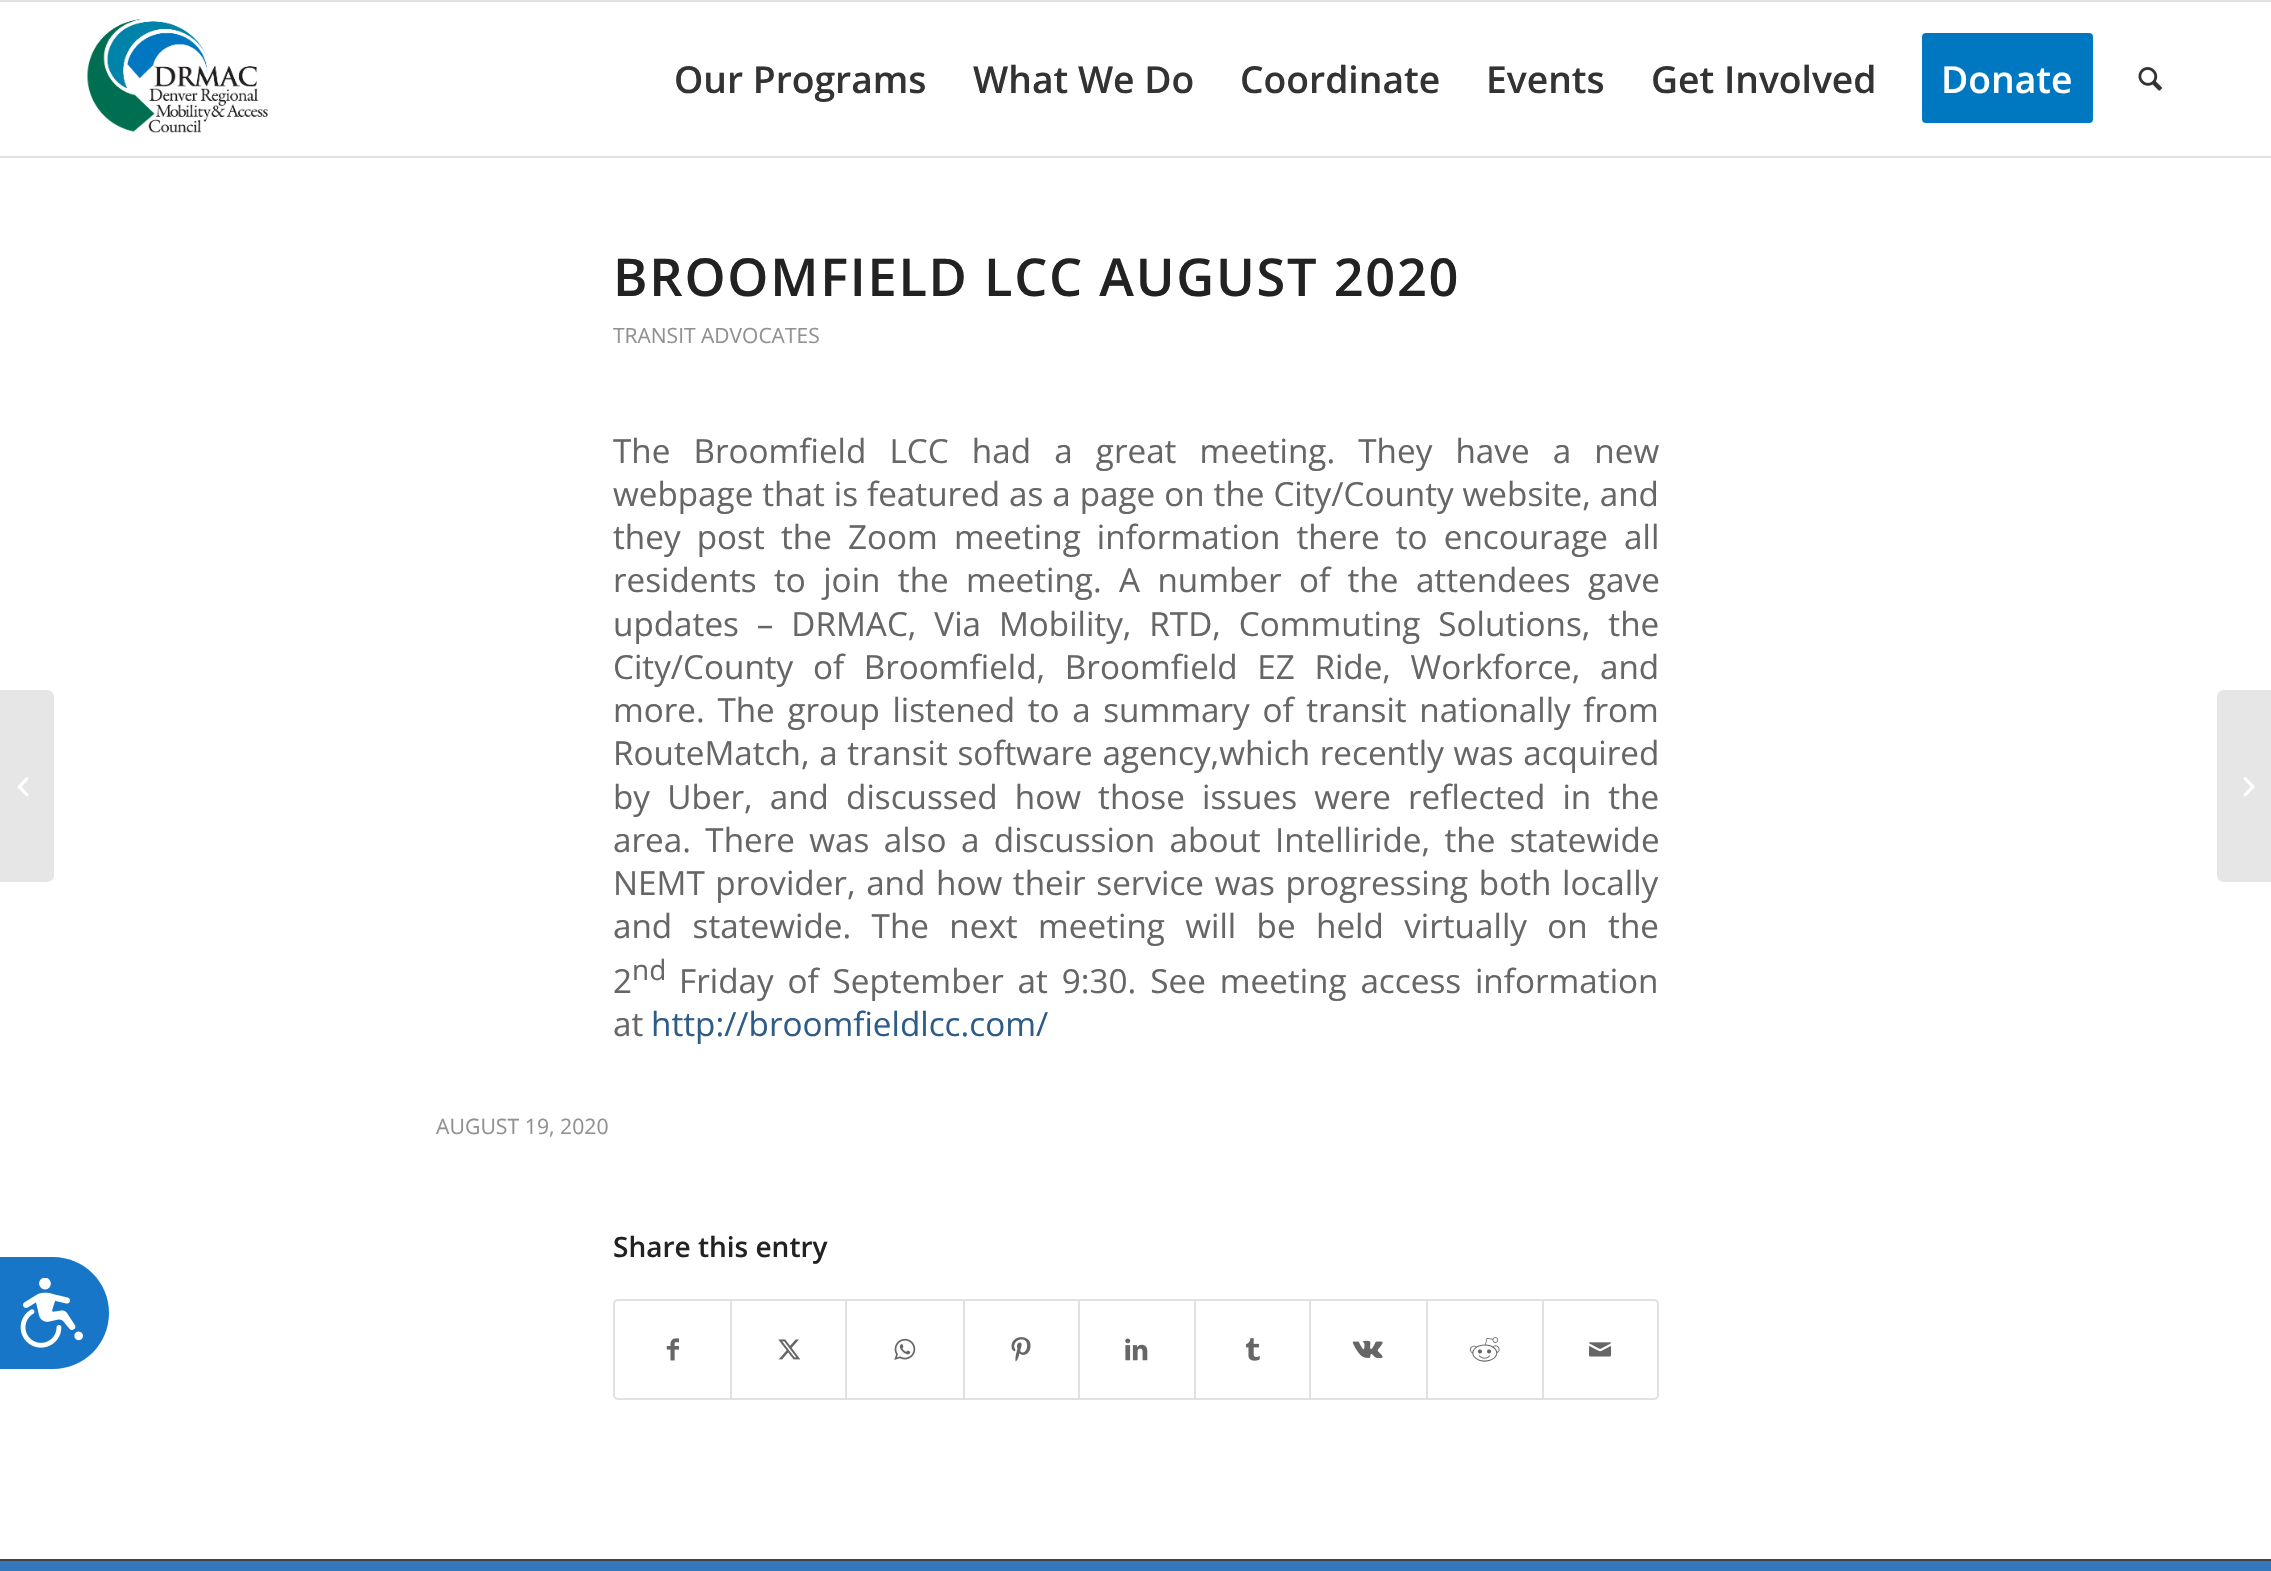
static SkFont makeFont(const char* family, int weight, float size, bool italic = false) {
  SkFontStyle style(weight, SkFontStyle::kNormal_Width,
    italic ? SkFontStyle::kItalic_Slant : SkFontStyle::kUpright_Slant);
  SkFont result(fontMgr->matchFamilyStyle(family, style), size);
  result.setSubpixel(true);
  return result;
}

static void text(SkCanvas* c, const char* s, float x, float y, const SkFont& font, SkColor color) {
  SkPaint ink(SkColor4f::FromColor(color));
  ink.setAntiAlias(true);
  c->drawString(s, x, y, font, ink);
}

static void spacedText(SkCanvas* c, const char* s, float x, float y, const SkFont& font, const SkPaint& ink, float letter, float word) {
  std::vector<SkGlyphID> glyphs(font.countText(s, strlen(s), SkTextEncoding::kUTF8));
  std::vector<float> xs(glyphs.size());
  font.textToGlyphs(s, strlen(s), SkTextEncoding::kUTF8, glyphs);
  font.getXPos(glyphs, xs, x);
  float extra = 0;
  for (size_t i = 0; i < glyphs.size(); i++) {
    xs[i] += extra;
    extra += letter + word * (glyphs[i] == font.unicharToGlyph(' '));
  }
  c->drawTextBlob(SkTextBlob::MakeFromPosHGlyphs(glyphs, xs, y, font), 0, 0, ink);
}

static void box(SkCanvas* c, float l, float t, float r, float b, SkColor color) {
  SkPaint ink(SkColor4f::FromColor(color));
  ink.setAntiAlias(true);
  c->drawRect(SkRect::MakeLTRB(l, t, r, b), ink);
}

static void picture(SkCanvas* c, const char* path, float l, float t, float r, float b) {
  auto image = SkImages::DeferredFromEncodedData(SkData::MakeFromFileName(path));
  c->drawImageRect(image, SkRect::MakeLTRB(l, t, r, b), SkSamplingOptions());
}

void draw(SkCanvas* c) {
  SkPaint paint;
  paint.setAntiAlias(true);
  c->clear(0xffffffff);
  box(c, 0, 0, 2271, 2, 0xffe1e1e1);
  box(c, 0, 156, 2271, 158, 0xffe1e1e1);
  picture(c, "img_01.png", 87, 18, 268, 133);
  SkFont face1 = makeFont("Open Sans", 600, 37.25f);
  text(c, "Our Programs", 674, 93, face1, 0xff333333);
  text(c, "What We Do", 973, 93, face1, 0xff333333);
  text(c, "Coordinate", 1240, 93, face1, 0xff333333);
  text(c, "Events", 1486, 93, face1, 0xff333333);
  text(c, "Get Involved", 1651, 93, face1, 0xff333333);
  paint.setColor(0xff0077c1);
  c->drawRoundRect(SkRect::MakeLTRB(1924, 35, 2091, 121), 2, 2, paint);
  paint.setStyle(SkPaint::kStroke_Style);
  paint.setStrokeWidth(4);
  c->drawRoundRect(SkRect::MakeLTRB(1924, 35, 2091, 121), 2, 2, paint);
  text(c, "Donate", 1941, 93, face1, 0xffffffff);
  picture(c, "img_02.png", 2138, 67, 2162, 91);
  paint.setStyle(SkPaint::kFill_Style);
  paint.setColor(0xffe6e6e6);
  c->drawPath(SkPathBuilder().moveTo(0, 690).lineTo(47, 690).cubicTo(51, 690, 54, 693, 54, 697).lineTo(54, 875).cubicTo(54, 879, 51, 882, 47, 882).lineTo(0, 882).close().detach(), paint);
  picture(c, "img_03.png", 17, 777, 29, 797);
  SkFont face2 = makeFont("Open Sans", 600, 52.3f);
  paint.setColor(0xff222222);
  spacedText(c, "BROOMFIELD LCC AUGUST 2020", 613, 296, face2, paint, 1.75f, 0);
  SkFont face3 = makeFont("Open Sans", 400, 21);
  text(c, "TRANSIT ADVOCATES", 613, 343, face3, 0xff919191);
  SkFont face4 = makeFont("Open Sans", 400, 33.25f);
  paint.setColor(0xff666666);
  spacedText(c, "The Broomfield LCC had a great meeting. They have a new", 613, 463, face4, paint, 0, 14.5f);
  spacedText(c, "webpage that is featured as a page on the City/County website, and", 613, 506, face4, paint, 0, 0.3f);
  spacedText(c, "they post the Zoom meeting information there to encourage all", 613, 549, face4, paint, 0, 7.5f);
  spacedText(c, "residents to join the meeting. A number of the attendees gave", 613, 592, face4, paint, 0, 8.75f);
  spacedText(c, "updates – DRMAC, Via Mobility, RTD, Commuting Solutions, the", 613, 636, face4, paint, 0, 9.25f);
  spacedText(c, "City/County of Broomfield, Broomfield EZ Ride, Workforce, and", 613, 679, face4, paint, 0, 11);
  spacedText(c, "more. The group listened to a summary of transit nationally from", 613, 722, face4, paint, 0, 4);
  spacedText(c, "RouteMatch, a transit software agency,which recently was acquired", 613, 765, face4, paint, 0, 1);
  spacedText(c, "by Uber, and discussed how those issues were reflected in the", 613, 809, face4, paint, 0, 8.5f);
  spacedText(c, "area. There was also a discussion about Intelliride, the statewide", 613, 852, face4, paint, 0, 5.75f);
  spacedText(c, "NEMT provider, and how their service was progressing both locally", 613, 895, face4, paint, 0, 2);
  spacedText(c, "and statewide. The next meeting will be held virtually on the", 613, 938, face4, paint, 0, 11.75f);
  text(c, "2", 613, 993, face4, 0xff666666);
  SkFont face5 = makeFont("Open Sans", 400, 28);
  text(c, "nd", 632, 980, face5, 0xff666666);
  spacedText(c, "Friday of September at 9:30. See meeting access information", 679, 993, face4, paint, 0, 5.25f);
  text(c, "at", 613, 1036, face4, 0xff666666);
  text(c, "http://broomfieldlcc.com/", 651, 1036, face4, 0xff2d5c88);
  SkFont face6 = makeFont("Open Sans", 400, 21.25f);
  text(c, "AUGUST 19, 2020", 436, 1134, face6, 0xff919191);
  SkFont face7 = makeFont("Open Sans", 600, 28);
  text(c, "Share this entry", 613, 1257, face7, 0xff222222);
  paint.setStyle(SkPaint::kStroke_Style);
  paint.setStrokeWidth(2);
  paint.setColor(0xffe1e1e1);
  c->drawRoundRect(SkRect::MakeLTRB(614, 1300, 1658, 1399), 4, 4, paint);
  picture(c, "img_04.png", 666, 1338, 679, 1361);
  box(c, 730, 1300, 732, 1398, 0xffe1e1e1);
  picture(c, "img_05.png", 778, 1339, 801, 1360);
  box(c, 845, 1300, 847, 1398, 0xffe1e1e1);
  picture(c, "img_06.png", 894, 1338, 916, 1360);
  box(c, 963, 1300, 965, 1398, 0xffe1e1e1);
  picture(c, "img_07.png", 1011, 1337, 1031, 1362);
  box(c, 1078, 1300, 1080, 1398, 0xffe1e1e1);
  picture(c, "img_08.png", 1125, 1338, 1148, 1361);
  box(c, 1194, 1300, 1196, 1398, 0xffe1e1e1);
  picture(c, "img_09.png", 1246, 1338, 1260, 1361);
  box(c, 1309, 1300, 1311, 1398, 0xffe1e1e1);
  picture(c, "img_10.png", 1352, 1340, 1383, 1358);
  box(c, 1426, 1300, 1428, 1398, 0xffe1e1e1);
  picture(c, "img_11.png", 1470, 1337, 1500, 1362);
  box(c, 1542, 1300, 1544, 1398, 0xffe1e1e1);
  picture(c, "img_12.png", 1589, 1342, 1612, 1357);
  box(c, 0, 1561, 2271, 1571, 0xff3378bd);
  box(c, 0, 1559, 2271, 1561, 0xff444444);
  paint.setStyle(SkPaint::kFill_Style);
  paint.setColor(0xffe6e6e6);
  c->drawPath(SkPathBuilder().moveTo(2224, 690).lineTo(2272, 690).lineTo(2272, 882).lineTo(2224, 882).cubicTo(2220, 882, 2217, 879, 2217, 875).lineTo(2217, 697).cubicTo(2217, 693, 2220, 690, 2224, 690).close().detach(), paint);
  picture(c, "img_13.png", 2243, 777, 2255, 797);
  paint.setColor(0xff1876c9);
  c->drawPath(SkPathBuilder().moveTo(0, 1257).lineTo(53, 1257).cubicTo(84, 1257, 109, 1282, 109, 1313).cubicTo(109, 1344, 84, 1369, 53, 1369).lineTo(0, 1369).close().detach(), paint);
  picture(c, "img_14.png", 20, 1278, 83, 1348);
}
